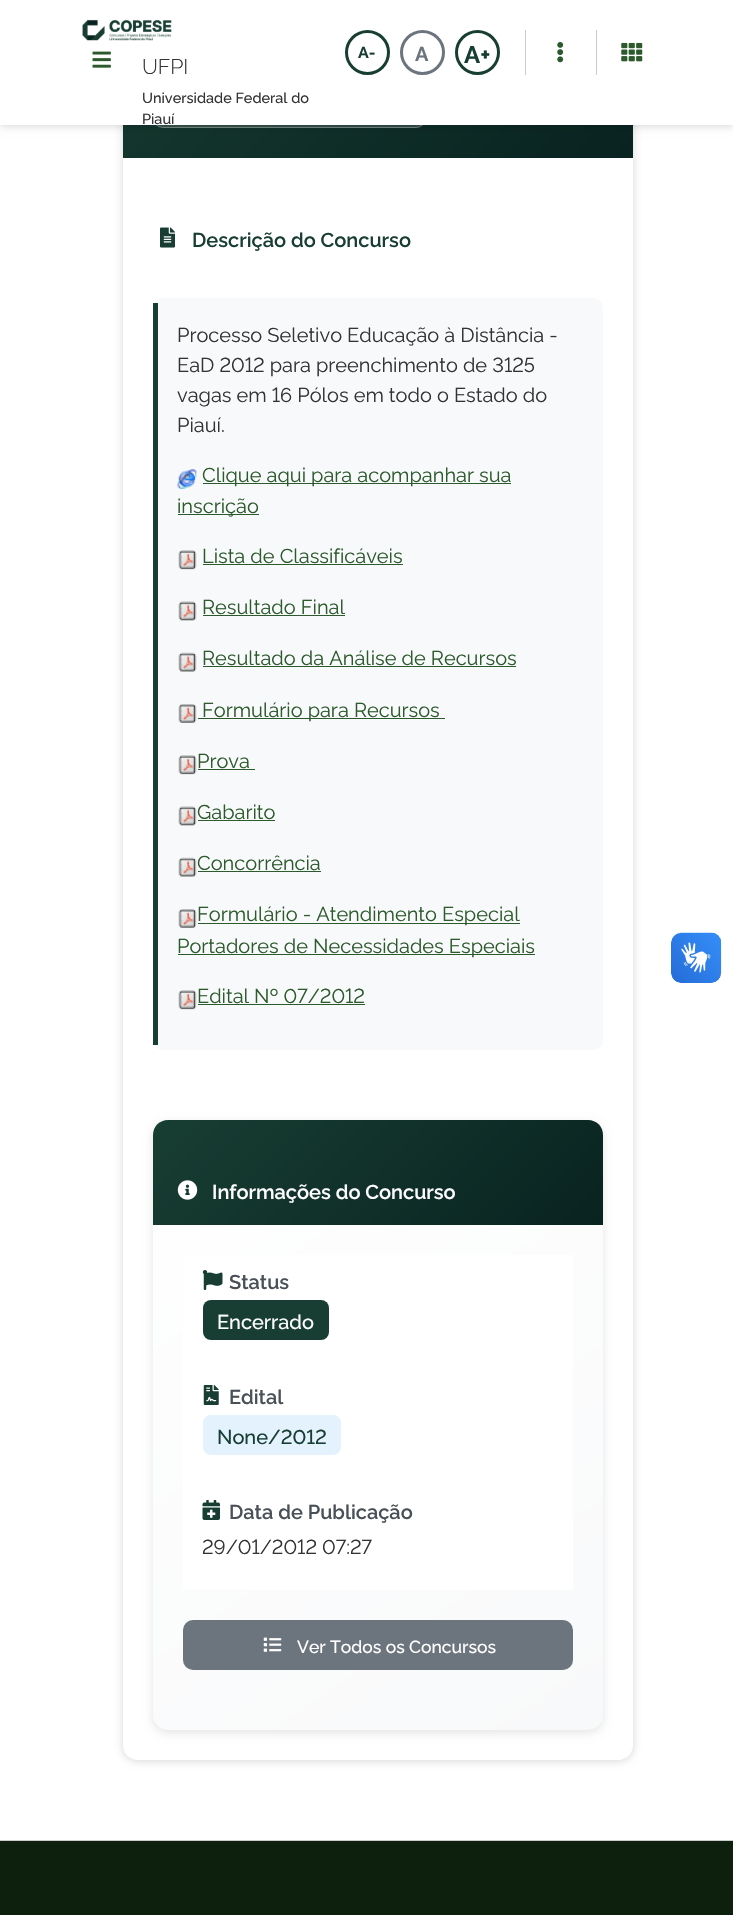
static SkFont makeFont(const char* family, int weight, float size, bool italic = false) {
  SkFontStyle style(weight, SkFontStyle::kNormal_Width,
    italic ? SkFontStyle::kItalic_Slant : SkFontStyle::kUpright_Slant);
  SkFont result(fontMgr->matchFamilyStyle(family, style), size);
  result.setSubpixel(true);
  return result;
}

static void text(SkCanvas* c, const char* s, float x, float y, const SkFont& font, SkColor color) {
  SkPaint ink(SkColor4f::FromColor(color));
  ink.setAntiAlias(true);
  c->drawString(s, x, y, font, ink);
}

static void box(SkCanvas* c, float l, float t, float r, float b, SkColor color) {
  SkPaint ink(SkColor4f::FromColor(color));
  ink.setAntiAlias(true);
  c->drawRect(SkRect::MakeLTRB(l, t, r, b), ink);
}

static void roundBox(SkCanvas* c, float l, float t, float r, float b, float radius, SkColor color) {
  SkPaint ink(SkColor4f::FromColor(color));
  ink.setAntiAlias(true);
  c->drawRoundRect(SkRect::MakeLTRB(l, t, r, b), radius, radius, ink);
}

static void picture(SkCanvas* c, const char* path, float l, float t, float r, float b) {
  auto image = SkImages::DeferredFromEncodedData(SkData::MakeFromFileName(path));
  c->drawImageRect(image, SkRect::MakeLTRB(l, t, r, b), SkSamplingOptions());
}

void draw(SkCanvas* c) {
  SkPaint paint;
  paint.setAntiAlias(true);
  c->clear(0xffffffff);
  c->save();
  c->clipPath(SkPathBuilder(SkPathFillType::kEvenOdd).moveTo(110, 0).lineTo(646, 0).lineTo(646, 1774).lineTo(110, 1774).close().moveTo(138, -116).lineTo(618, -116).cubicTo(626.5f, -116, 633, -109.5f, 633, -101).lineTo(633, 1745).cubicTo(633, 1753.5f, 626.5f, 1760, 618, 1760).lineTo(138, 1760).cubicTo(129.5f, 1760, 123, 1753.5f, 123, 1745).lineTo(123, -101).cubicTo(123, -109.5f, 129.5f, -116, 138, -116).close().detach(), true);
  paint.setColor(0x29000000);
  paint.setMaskFilter(SkMaskFilter::MakeBlur(kNormal_SkBlurStyle, 4));
  c->drawRoundRect(SkRect::MakeLTRB(123, -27, 633, 1761), 15, 15, paint);
  paint.setMaskFilter(nullptr);
  c->restore();
  {
    const SkColor colors[] = {0xff183e33, 0xff092320};
    const float stops[] = {0, 1};
    const SkPoint ends[] = {{182, -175}, {573, 217}};
    paint.setShader(SkGradientShader::MakeLinear(ends, colors, stops, 2, SkTileMode::kClamp));
    paint.setAlpha(255);
  }
  c->drawRect(SkRect::MakeLTRB(123, 125, 633, 158), paint);
  roundBox(c, 153, 88, 426, 128, 10, 0x26ffffff);
  paint.setStyle(SkPaint::kStroke_Style);
  paint.setStrokeWidth(1);
  paint.setShader(nullptr);
  paint.setColor(0x4dffffff);
  c->drawRoundRect(SkRect::MakeLTRB(153.5f, 88.5f, 425.5f, 127.5f), 9.5f, 9.5f, paint);
  paint.setStyle(SkPaint::kFill_Style);
  paint.setColor(0x29000000);
  paint.setMaskFilter(SkMaskFilter::MakeBlur(kNormal_SkBlurStyle, 4));
  c->drawRect(SkRect::MakeLTRB(0, 1, 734, 126), paint);
  paint.setMaskFilter(nullptr);
  box(c, 0, 0, 733, 125, 0xffffffff);
  picture(c, "img_01.png", 82, 19, 172, 41);
  paint.setStyle(SkPaint::kStroke_Style);
  paint.setStrokeWidth(3);
  paint.setColor(0xff183e33);
  c->drawCircle(367.5f, 52.5f, 21, paint);
  SkFont face1 = makeFont("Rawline", 700, 16);
  text(c, "A-", 358, 58, face1, 0xff183e33);
  paint.setColor(0xff6c757d);
  c->drawCircle(422.5f, 52.5f, 21, paint);
  SkFont face2 = makeFont("Rawline", 700, 20);
  text(c, "A", 415, 61, face2, 0xff6c757d);
  paint.setColor(0xff183e33);
  c->drawCircle(477.5f, 52.5f, 21, paint);
  SkFont face3 = makeFont("Rawline", 700, 24);
  text(c, "A+", 464, 63, face3, 0xff183e33);
  box(c, 525, 30, 526, 75, 0xffcccccc);
  picture(c, "img_02.png", 557, 42, 564, 63);
  box(c, 596, 30, 597, 75, 0xffcccccc);
  picture(c, "img_03.png", 621, 42, 643, 62);
  picture(c, "img_04.png", 92, 51, 111, 68);
  SkFont face4 = makeFont("Rawline", 300, 21);
  text(c, "UFPI", 142, 74, face4, 0xff333333);
  SkFont face5 = makeFont("Rawline", 500, 14.5f);
  text(c, "Universidade Federal do", 142, 103, face5, 0xff333333);
  text(c, "Piauí", 142, 124, face5, 0xff333333);
  picture(c, "img_05.png", 160, 227, 175, 248);
  SkFont face6 = makeFont("Rawline", 600, 20);
  text(c, "Descrição do Concurso", 192, 247, face6, 0xff183e33);
  roundBox(c, 153, 298, 603, 1050, 10, 0xfff8f9fa);
  box(c, 153, 303, 158, 1045, 0xff183e33);
  SkFont face7 = makeFont("Rawline", 400, 20);
  text(c, "Processo Seletivo Educação à Distância -", 177, 342, face7, 0xff333333);
  text(c, "EaD 2012 para preenchimento de 3125", 177, 372, face7, 0xff333333);
  text(c, "vagas em 16 Pólos em todo o Estado do", 177, 402, face7, 0xff333333);
  text(c, "Piauí.", 177, 432, face7, 0xff333333);
  picture(c, "img_06.png", 177, 469, 197, 489);
  box(c, 203, 483, 511, 484, 0xff2d5a2d);
  text(c, "Clique aqui para acompanhar sua", 202, 482, face7, 0xff2d5a2d);
  box(c, 178, 514, 259, 515, 0xff2d5a2d);
  text(c, "inscrição", 177, 513, face7, 0xff2d5a2d);
  picture(c, "img_07.png", 178, 550, 197, 570);
  text(c, "Lista de Classificáveis", 202, 563, face7, 0xff2d5a2d);
  box(c, 203, 564, 403, 565, 0xff2d5a2d);
  picture(c, "img_08.png", 178, 601, 197, 621);
  text(c, "Resultado Final", 202, 614, face7, 0xff2d5a2d);
  box(c, 203, 615, 345, 616, 0xff2d5a2d);
  picture(c, "img_09.png", 178, 652, 197, 672);
  text(c, "Resultado da Análise de Recursos", 202, 665, face7, 0xff2d5a2d);
  box(c, 203, 666, 516, 667, 0xff2d5a2d);
  picture(c, "img_10.png", 178, 704, 197, 723);
  box(c, 198, 718, 445, 719, 0xff2d5a2d);
  text(c, "Formulário para Recursos", 202, 717, face7, 0xff2d5a2d);
  picture(c, "img_11.png", 178, 755, 197, 775);
  text(c, "Prova", 197, 768, face7, 0xff2d5a2d);
  box(c, 198, 769, 255, 770, 0xff2d5a2d);
  picture(c, "img_08.png", 178, 806, 197, 826);
  text(c, "Gabarito", 197, 819, face7, 0xff2d5a2d);
  box(c, 198, 820, 275, 821, 0xff2d5a2d);
  picture(c, "img_09.png", 178, 857, 197, 877);
  text(c, "Concorrência", 197, 870, face7, 0xff2d5a2d);
  box(c, 198, 871, 321, 872, 0xff2d5a2d);
  picture(c, "img_10.png", 178, 909, 197, 928);
  box(c, 198, 923, 520, 924, 0xff2d5a2d);
  text(c, "Formulário - Atendimento Especial", 197, 921, face7, 0xff2d5a2d);
  box(c, 178, 954, 535, 955, 0xff2d5a2d);
  text(c, "Portadores de Necessidades Especiais", 177, 953, face7, 0xff2d5a2d);
  picture(c, "img_07.png", 178, 990, 197, 1010);
  text(c, "Edital Nº 07/2012", 197, 1003, face7, 0xff2d5a2d);
  box(c, 198, 1004, 365, 1005, 0xff2d5a2d);
  paint.setStyle(SkPaint::kFill_Style);
  paint.setColor(0x1a000000);
  paint.setMaskFilter(SkMaskFilter::MakeBlur(kNormal_SkBlurStyle, 5));
  c->drawRoundRect(SkRect::MakeLTRB(153, 1123, 603, 1733), 15, 15, paint);
  paint.setMaskFilter(nullptr);
  {
    const SkColor colors[] = {0xffffffff, 0xfff8f9fa};
    const float stops[] = {0, 1};
    const SkPoint ends[] = {{160, 1115}, {595, 1735}};
    paint.setShader(SkGradientShader::MakeLinear(ends, colors, stops, 2, SkTileMode::kClamp));
    paint.setAlpha(255);
  }
  c->drawRoundRect(SkRect::MakeLTRB(153, 1120, 603, 1730), 15, 15, paint);
  {
    const SkColor colors[] = {0xff183e33, 0xff092320};
    const float stops[] = {0, 1};
    const SkPoint ends[] = {{239, 1034}, {516, 1311}};
    paint.setShader(SkGradientShader::MakeLinear(ends, colors, stops, 2, SkTileMode::kClamp));
    paint.setAlpha(255);
  }
  c->drawPath(SkPathBuilder().moveTo(168, 1120).lineTo(588, 1120).cubicTo(596.5f, 1120, 603, 1126.5f, 603, 1135).lineTo(603, 1225).lineTo(153, 1225).lineTo(153, 1135).cubicTo(153, 1126.5f, 159.5f, 1120, 168, 1120).close().detach(), paint);
  picture(c, "img_12.png", 177, 1180, 198, 1200);
  text(c, "Informações do Concurso", 212, 1199, face6, 0xffffffff);
  box(c, 183, 1255, 573, 1590, 0xffffffff);
  picture(c, "img_13.png", 202, 1270, 223, 1290);
  text(c, "Status", 229, 1289, face6, 0xff495057);
  roundBox(c, 203, 1300, 329, 1340, 8, 0xff183e33);
  SkFont face8 = makeFont("Rawline", 500, 20);
  text(c, "Encerrado", 217, 1329, face8, 0xffffffff);
  picture(c, "img_14.png", 203, 1385, 219, 1405);
  text(c, "Edital", 229, 1404, face6, 0xff495057);
  roundBox(c, 203, 1415, 341, 1455, 8, 0xffe3f2fd);
  text(c, "None/2012", 217, 1444, face8, 0xff183e33);
  picture(c, "img_15.png", 202, 1500, 220, 1520);
  text(c, "Data de Publicação", 229, 1519, face6, 0xff495057);
  text(c, "29/01/2012 07:27", 202, 1554, face7, 0xff333333);
  roundBox(c, 183, 1620, 573, 1670, 10, 0xff6c757d);
  picture(c, "img_16.png", 263, 1637, 282, 1652);
  SkFont face9 = makeFont("Rawline", 500, 17.5f);
  text(c, "Ver Todos os Concursos", 297, 1653, face9, 0xffffffff);
  picture(c, "img_17.png", 671, 932, 722, 983);
  picture(c, "img_18.png", 671, 933, 721, 983);
  box(c, 0, 1841, 733, 1915, 0xff0d1f0d);
  box(c, 0, 1840, 733, 1841, 0xffcccccc);
}
